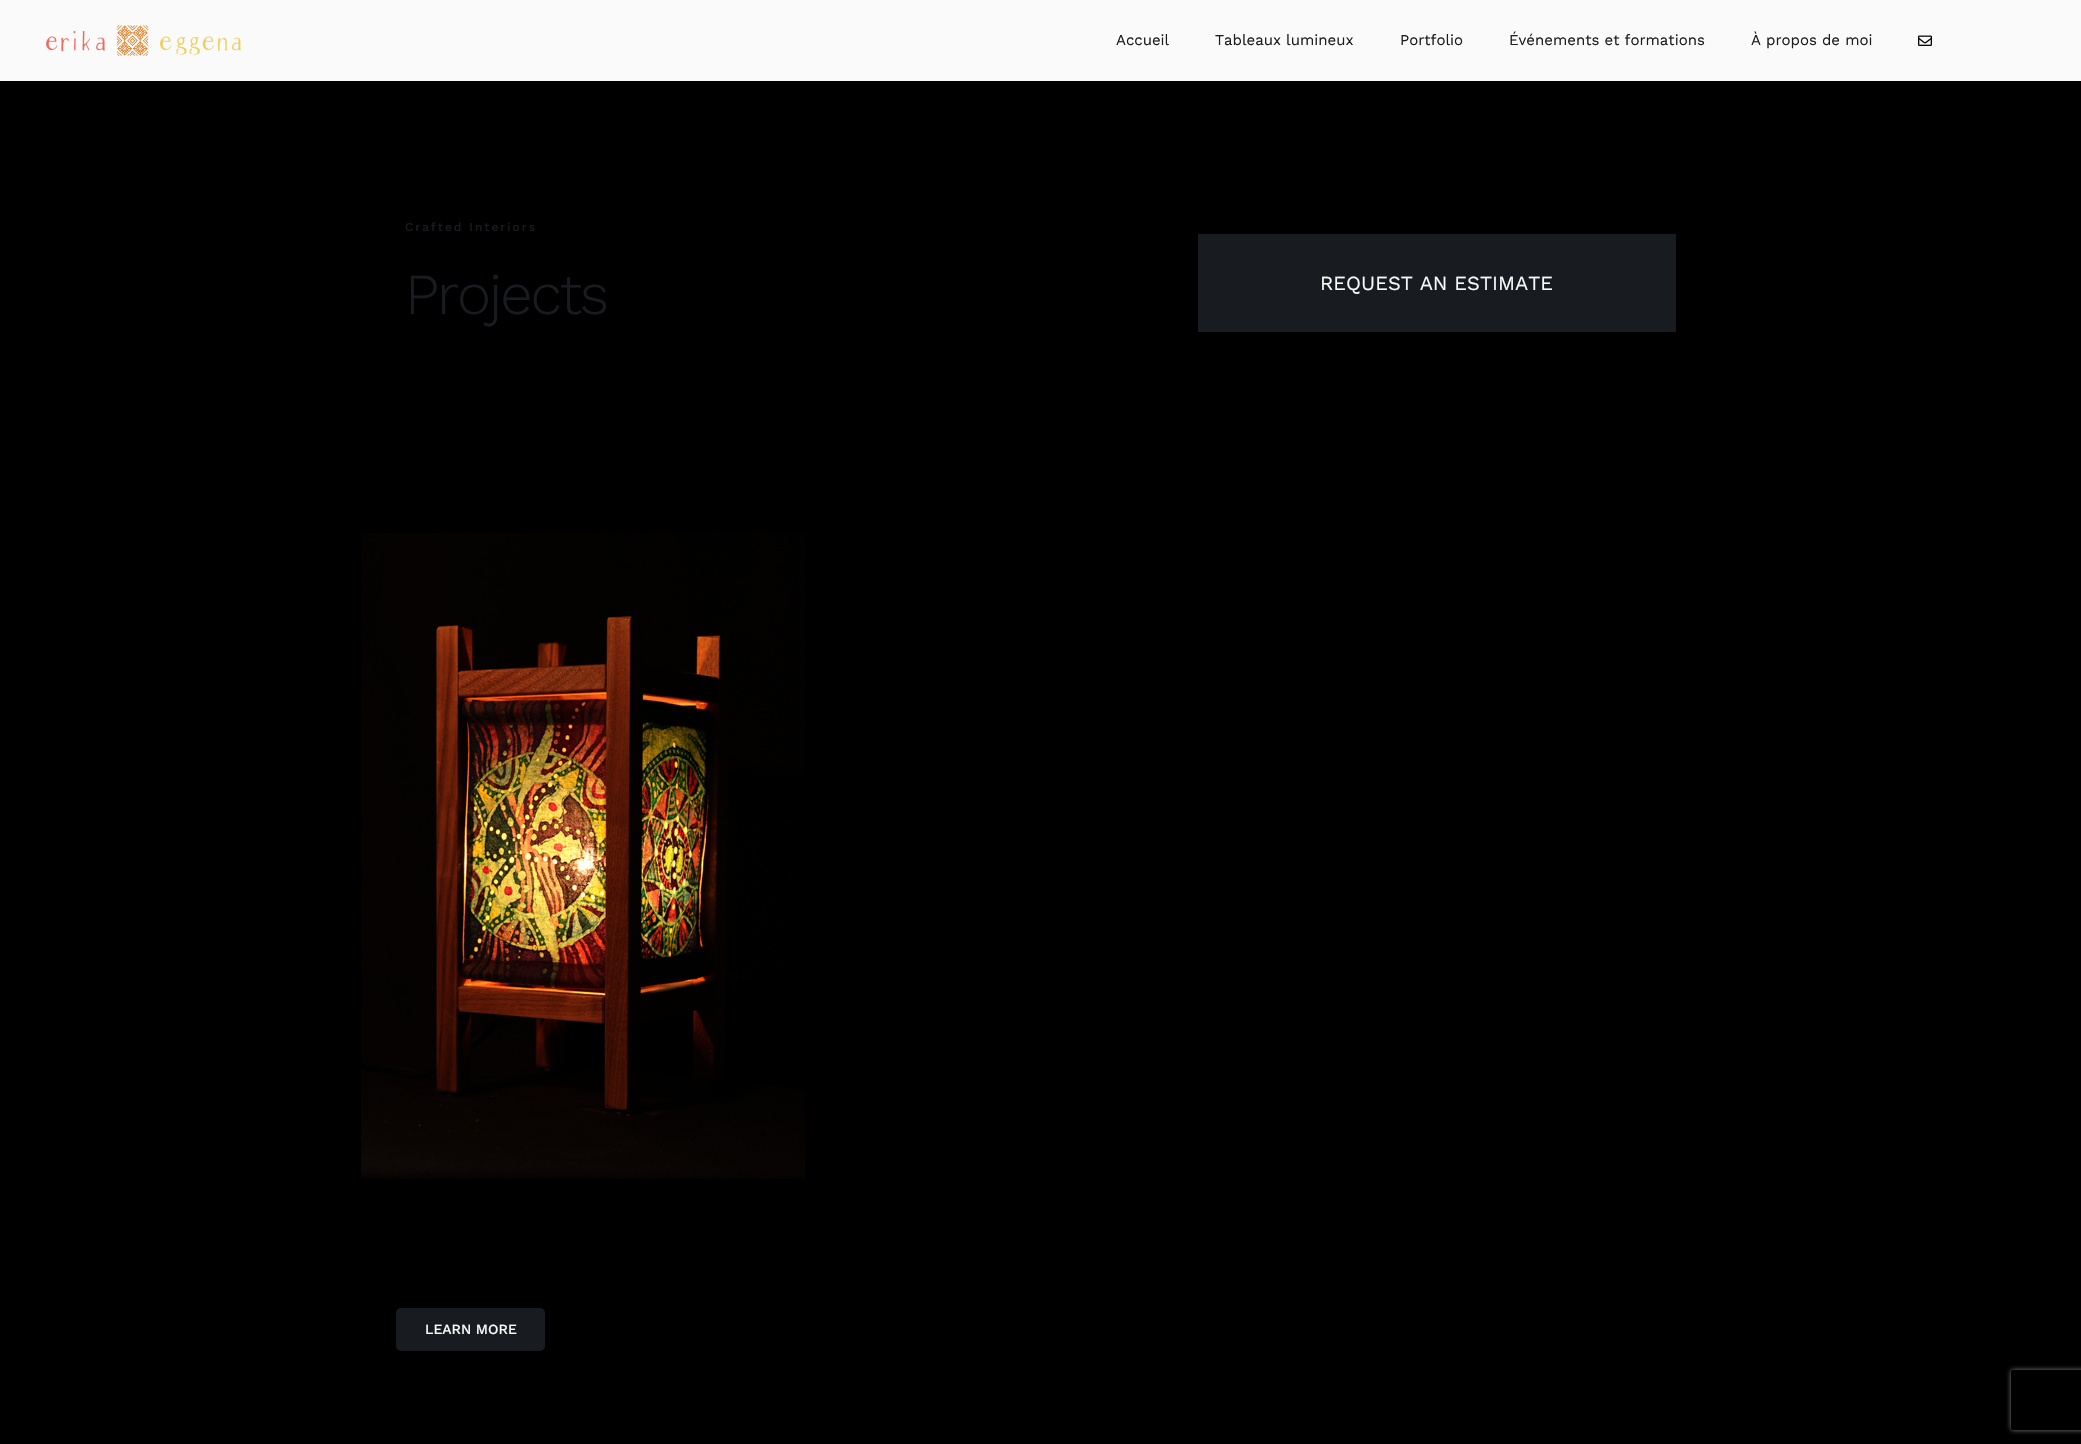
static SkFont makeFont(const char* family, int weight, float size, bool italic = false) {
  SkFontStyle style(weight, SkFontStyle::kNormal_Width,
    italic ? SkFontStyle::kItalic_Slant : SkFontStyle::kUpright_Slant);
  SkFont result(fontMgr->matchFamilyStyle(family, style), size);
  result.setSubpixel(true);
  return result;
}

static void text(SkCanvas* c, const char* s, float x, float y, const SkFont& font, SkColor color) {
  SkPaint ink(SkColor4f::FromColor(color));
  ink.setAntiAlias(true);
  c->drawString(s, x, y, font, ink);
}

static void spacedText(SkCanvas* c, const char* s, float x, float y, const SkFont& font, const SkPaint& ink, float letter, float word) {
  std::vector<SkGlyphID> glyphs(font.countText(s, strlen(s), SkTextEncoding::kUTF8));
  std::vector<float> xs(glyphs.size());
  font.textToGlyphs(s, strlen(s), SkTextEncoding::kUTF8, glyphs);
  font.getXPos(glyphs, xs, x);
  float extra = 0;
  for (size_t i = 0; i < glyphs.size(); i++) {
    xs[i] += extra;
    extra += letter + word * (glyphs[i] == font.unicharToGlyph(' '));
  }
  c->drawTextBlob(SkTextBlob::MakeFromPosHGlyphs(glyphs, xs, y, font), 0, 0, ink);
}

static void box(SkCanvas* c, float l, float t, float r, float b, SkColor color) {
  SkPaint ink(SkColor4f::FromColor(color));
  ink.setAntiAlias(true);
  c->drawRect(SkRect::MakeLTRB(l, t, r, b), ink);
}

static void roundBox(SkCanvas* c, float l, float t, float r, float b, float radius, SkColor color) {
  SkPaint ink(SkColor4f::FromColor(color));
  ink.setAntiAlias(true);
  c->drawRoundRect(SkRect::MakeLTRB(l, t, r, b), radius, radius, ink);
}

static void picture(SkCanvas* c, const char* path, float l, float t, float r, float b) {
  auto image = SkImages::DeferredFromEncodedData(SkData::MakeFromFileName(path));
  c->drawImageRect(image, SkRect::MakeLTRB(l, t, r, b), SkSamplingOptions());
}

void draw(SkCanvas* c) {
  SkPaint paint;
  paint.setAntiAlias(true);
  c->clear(0xff000000);
  box(c, 0, 0, 2081, 81, 0xfffafafa);
  picture(c, "img_01.png", 46, 25, 241, 56);
  SkFont face1 = makeFont("Work Sans", 400, 15);
  text(c, "Accueil", 1116, 45, face1, 0xff1e1c1c);
  text(c, "Tableaux lumineux", 1215, 45, face1, 0xff1e1c1c);
  text(c, "Portfolio", 1400, 45, face1, 0xff1e1c1c);
  text(c, "Événements et formations", 1509, 45, face1, 0xff1e1c1c);
  text(c, "À propos de moi", 1751, 45, face1, 0xff1e1c1c);
  picture(c, "img_02.png", 1918, 35, 1932, 46);
  SkFont face2 = makeFont("Work Sans", 500, 12);
  paint.setColor(0xff181b20);
  spacedText(c, "Crafted Interiors", 405, 231, face2, paint, 2, 0);
  SkFont face3 = makeFont("Work Sans", 300, 58);
  spacedText(c, "Projects", 405, 314, face3, paint, -2, 0);
  box(c, 1198, 234, 1676, 332, 0xff181b20);
  SkFont face4 = makeFont("Work Sans", 400, 20);
  text(c, "REQUEST AN ESTIMATE", 1320, 290, face4, 0xfffafafa);
  picture(c, "img_03.png", 361, 533, 805, 1179);
  roundBox(c, 396, 1308, 545, 1351, 5, 0xff181b20);
  SkFont face5 = makeFont("Work Sans", 500, 14);
  text(c, "LEARN MORE", 425, 1334, face5, 0xfffafafa);
  c->save();
  c->clipPath(SkPathBuilder(SkPathFillType::kEvenOdd).moveTo(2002, 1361).lineTo(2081, 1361).lineTo(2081, 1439).lineTo(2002, 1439).close().moveTo(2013, 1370).lineTo(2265, 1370).cubicTo(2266, 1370, 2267, 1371, 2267, 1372).lineTo(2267, 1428).cubicTo(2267, 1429, 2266, 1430, 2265, 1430).lineTo(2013, 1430).cubicTo(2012, 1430, 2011, 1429, 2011, 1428).lineTo(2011, 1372).cubicTo(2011, 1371, 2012, 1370, 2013, 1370).close().detach(), true);
  paint.setColor(0xff808080);
  paint.setMaskFilter(SkMaskFilter::MakeBlur(kNormal_SkBlurStyle, 2.5f));
  c->drawRoundRect(SkRect::MakeLTRB(2011, 1370, 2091, 1430), 2, 2, paint);
  paint.setMaskFilter(nullptr);
  c->restore();
}
